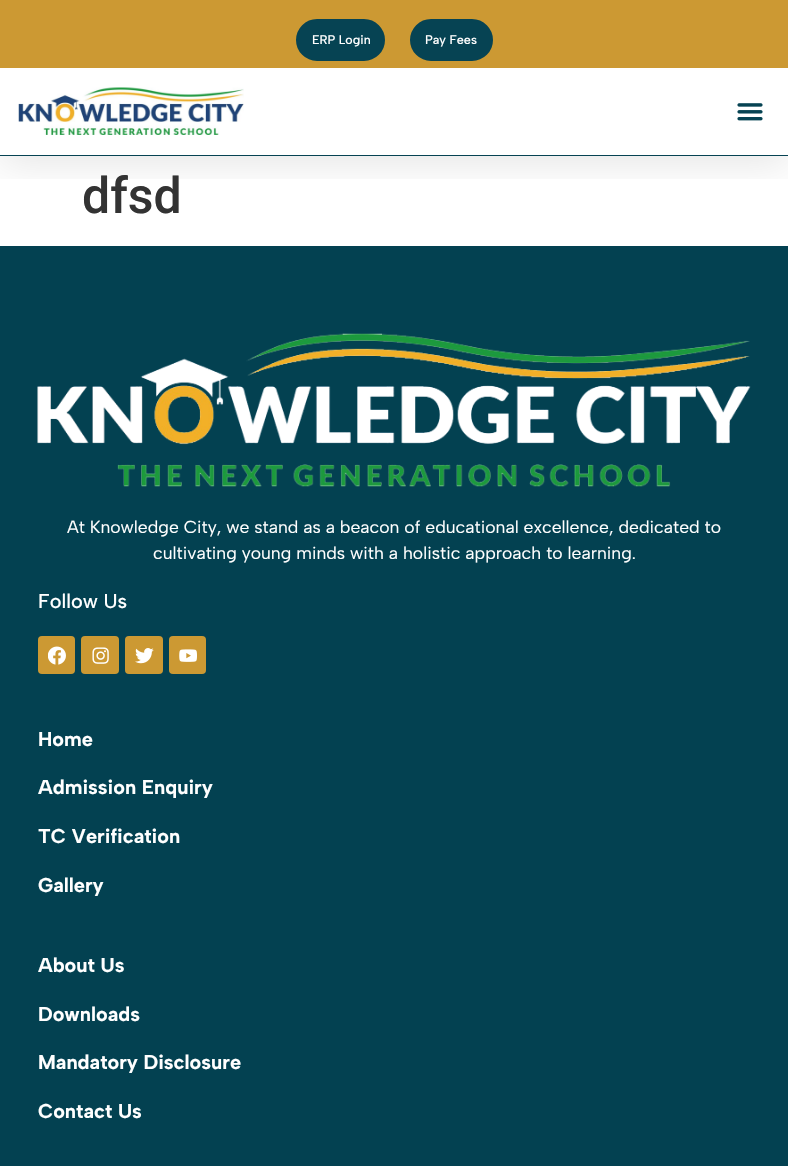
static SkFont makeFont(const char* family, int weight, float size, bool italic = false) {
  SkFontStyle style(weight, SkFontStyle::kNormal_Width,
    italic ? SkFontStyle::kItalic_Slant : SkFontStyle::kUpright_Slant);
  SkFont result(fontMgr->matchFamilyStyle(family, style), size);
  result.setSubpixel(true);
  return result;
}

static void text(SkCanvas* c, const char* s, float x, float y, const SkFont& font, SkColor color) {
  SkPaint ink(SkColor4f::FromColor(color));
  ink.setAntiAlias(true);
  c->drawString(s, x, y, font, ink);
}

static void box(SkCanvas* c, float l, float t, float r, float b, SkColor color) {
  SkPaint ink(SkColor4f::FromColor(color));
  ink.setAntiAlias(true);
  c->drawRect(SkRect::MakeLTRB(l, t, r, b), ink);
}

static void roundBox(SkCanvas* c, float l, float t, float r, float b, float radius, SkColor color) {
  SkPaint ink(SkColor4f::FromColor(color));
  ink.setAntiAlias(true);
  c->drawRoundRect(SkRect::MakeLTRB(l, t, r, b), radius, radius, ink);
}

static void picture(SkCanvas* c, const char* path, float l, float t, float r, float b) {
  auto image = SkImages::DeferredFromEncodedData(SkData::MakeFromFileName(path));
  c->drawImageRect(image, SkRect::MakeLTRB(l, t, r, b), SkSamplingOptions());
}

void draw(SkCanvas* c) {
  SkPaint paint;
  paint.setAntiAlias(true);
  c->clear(0xffffffff);
  c->save();
  c->clipRect(SkRect::MakeLTRB(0, 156, 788, 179));
  paint.setColor(0x1a000000);
  paint.setMaskFilter(SkMaskFilter::MakeBlur(kNormal_SkBlurStyle, 19));
  c->drawRect(SkRect::MakeLTRB(0, 6, 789, 163), paint);
  paint.setMaskFilter(nullptr);
  c->restore();
  box(c, 0, 0, 788, 68, 0xffcc9933);
  paint.setColor(0xff064353);
  c->drawRoundRect(SkRect::MakeLTRB(297.5f, 20.5f, 383.5f, 59.5f), 19.5f, 19.5f, paint);
  paint.setStyle(SkPaint::kStroke_Style);
  paint.setStrokeWidth(3);
  c->drawRoundRect(SkRect::MakeLTRB(297.5f, 20.5f, 383.5f, 59.5f), 19.5f, 19.5f, paint);
  SkFont face1 = makeFont("Albert Sans", 500, 12.5f);
  text(c, "ERP Login", 312, 44, face1, 0xffffffff);
  paint.setStyle(SkPaint::kFill_Style);
  c->drawRoundRect(SkRect::MakeLTRB(411.5f, 20.5f, 491.5f, 59.5f), 19.5f, 19.5f, paint);
  paint.setStyle(SkPaint::kStroke_Style);
  c->drawRoundRect(SkRect::MakeLTRB(411.5f, 20.5f, 491.5f, 59.5f), 19.5f, 19.5f, paint);
  text(c, "Pay Fees", 425, 44, face1, 0xffffffff);
  box(c, 0, 155, 788, 156, 0xff064353);
  picture(c, "img_01.png", 18, 87, 244, 135);
  picture(c, "img_02.png", 737, 103, 763, 121);
  SkFont face2 = makeFont("Roboto", 500, 50);
  text(c, "dfsd", 82, 213, face2, 0xff333333);
  box(c, 0, 246, 788, 1166, 0xff034151);
  picture(c, "img_03.png", 37, 333, 751, 487);
  SkFont face3 = makeFont("Albert Sans", 400, 17.5f);
  text(c, "At Knowledge City, we stand as a beacon of educational excellence, dedicated to", 67, 533, face3, 0xffffffff);
  text(c, "cultivating young minds with a holistic approach to learning.", 153, 559, face3, 0xffffffff);
  SkFont face4 = makeFont("Albert Sans", 500, 20);
  text(c, "Follow Us", 38, 608, face4, 0xffffffff);
  roundBox(c, 38, 636, 75, 674, 4, 0xffcc9933);
  picture(c, "img_04.png", 48, 646, 66, 665);
  roundBox(c, 81, 636, 119, 674, 4, 0xffcc9933);
  picture(c, "img_05.png", 92, 647, 109, 664);
  roundBox(c, 125, 636, 163, 674, 4, 0xffcc9933);
  picture(c, "img_06.png", 135, 648, 154, 664);
  roundBox(c, 169, 636, 206, 674, 4, 0xffcc9933);
  picture(c, "img_07.png", 179, 649, 197, 662);
  SkFont face5 = makeFont("Albert Sans", 700, 20);
  text(c, "Home", 38, 746, face5, 0xffffffff);
  text(c, "Admission Enquiry", 38, 794, face5, 0xffffffff);
  text(c, "TC Verification", 38, 843, face5, 0xffffffff);
  text(c, "Gallery", 38, 892, face5, 0xffffffff);
  text(c, "About Us", 38, 972, face5, 0xffffffff);
  text(c, "Downloads", 38, 1021, face5, 0xffffffff);
  text(c, "Mandatory Disclosure", 38, 1069, face5, 0xffffffff);
  text(c, "Contact Us", 38, 1118, face5, 0xffffffff);
}
